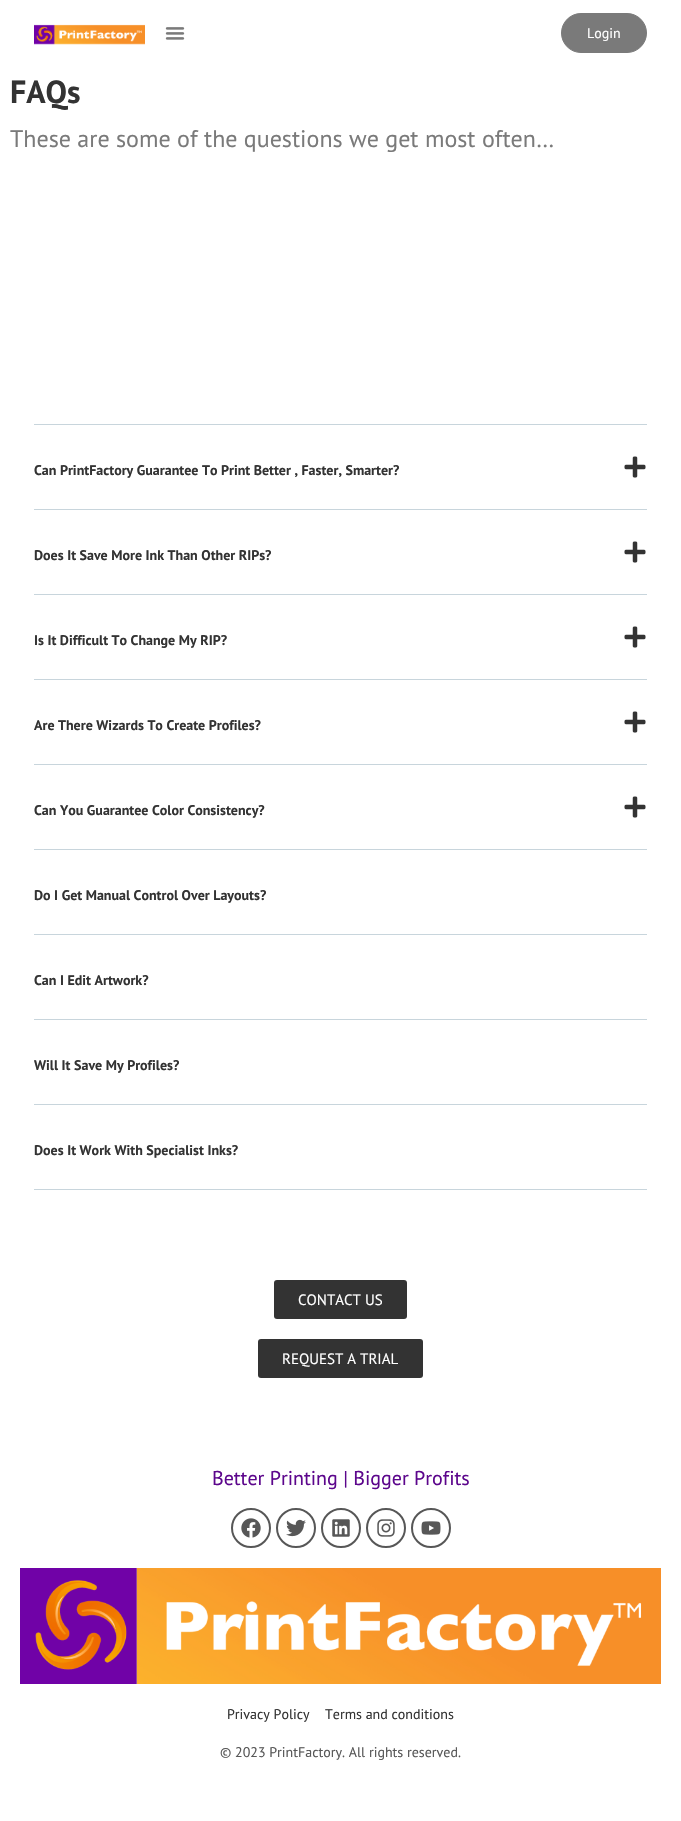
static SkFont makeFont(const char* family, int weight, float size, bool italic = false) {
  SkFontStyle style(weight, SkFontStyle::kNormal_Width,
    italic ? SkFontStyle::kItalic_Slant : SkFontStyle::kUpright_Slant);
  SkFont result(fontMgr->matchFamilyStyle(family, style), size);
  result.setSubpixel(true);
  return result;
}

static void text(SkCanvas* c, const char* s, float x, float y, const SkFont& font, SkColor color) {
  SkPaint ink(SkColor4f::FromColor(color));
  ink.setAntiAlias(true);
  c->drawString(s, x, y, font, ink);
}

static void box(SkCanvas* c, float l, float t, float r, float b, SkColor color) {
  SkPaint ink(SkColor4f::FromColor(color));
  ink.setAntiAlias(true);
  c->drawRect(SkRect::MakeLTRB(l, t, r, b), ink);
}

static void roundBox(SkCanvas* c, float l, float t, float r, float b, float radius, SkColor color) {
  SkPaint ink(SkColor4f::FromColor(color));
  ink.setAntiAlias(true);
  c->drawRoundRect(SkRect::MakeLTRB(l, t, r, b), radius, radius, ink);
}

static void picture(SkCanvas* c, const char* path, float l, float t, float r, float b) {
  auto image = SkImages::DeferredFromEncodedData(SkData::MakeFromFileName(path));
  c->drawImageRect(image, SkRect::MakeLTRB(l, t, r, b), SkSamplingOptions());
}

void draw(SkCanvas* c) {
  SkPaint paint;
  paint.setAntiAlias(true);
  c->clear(0xffffffff);
  picture(c, "img_01.png", 34, 24, 145, 45);
  picture(c, "img_02.png", 165, 27, 185, 40);
  paint.setColor(0xff7a7a7a);
  c->drawRoundRect(SkRect::MakeLTRB(561.5f, 13.5f, 646.5f, 52.5f), 19.5f, 19.5f, paint);
  paint.setStyle(SkPaint::kStroke_Style);
  paint.setStrokeWidth(1);
  c->drawRoundRect(SkRect::MakeLTRB(561.5f, 13.5f, 646.5f, 52.5f), 19.5f, 19.5f, paint);
  SkFont face1 = makeFont("PT Sans", 400, 14);
  text(c, "Login", 587, 38, face1, 0xffffffff);
  SkFont face2 = makeFont("PT Sans", 700, 32);
  text(c, "FAQs", 10, 103, face2, 0xff333333);
  SkFont face3 = makeFont("PT Sans", 400, 24);
  text(c, "These are some of the questions we get most often…", 10, 147, face3, 0xff7a7a7a);
  box(c, 34, 424, 647, 425, 0xffc8d5dc);
  box(c, 34, 509, 647, 510, 0xffc8d5dc);
  SkFont face4 = makeFont("PT Sans", 700, 14);
  text(c, "Can PrintFactory Guarantee To Print Better , Faster, Smarter?", 34, 475, face4, 0xff333333);
  picture(c, "img_03.png", 624, 456, 646, 478);
  box(c, 34, 594, 647, 595, 0xffc8d5dc);
  text(c, "Does It Save More Ink Than Other RIPs?", 34, 560, face4, 0xff333333);
  picture(c, "img_03.png", 624, 541, 646, 563);
  box(c, 34, 679, 647, 680, 0xffc8d5dc);
  text(c, "Is It Difficult To Change My RIP?", 34, 645, face4, 0xff333333);
  picture(c, "img_03.png", 624, 626, 646, 648);
  box(c, 34, 764, 647, 765, 0xffc8d5dc);
  text(c, "Are There Wizards To Create Profiles?", 34, 730, face4, 0xff333333);
  picture(c, "img_03.png", 624, 711, 646, 733);
  box(c, 34, 849, 647, 850, 0xffc8d5dc);
  text(c, "Can You Guarantee Color Consistency?", 34, 815, face4, 0xff333333);
  picture(c, "img_03.png", 624, 796, 646, 818);
  box(c, 34, 934, 647, 935, 0xffc8d5dc);
  text(c, "Do I Get Manual Control Over Layouts?", 34, 900, face4, 0xff333333);
  box(c, 34, 1019, 647, 1020, 0xffc8d5dc);
  text(c, "Can I Edit Artwork?", 34, 985, face4, 0xff333333);
  box(c, 34, 1104, 647, 1105, 0xffc8d5dc);
  text(c, "Will It Save My Profiles?", 34, 1070, face4, 0xff333333);
  box(c, 34, 1189, 647, 1190, 0xffc8d5dc);
  text(c, "Does It Work With Specialist Inks?", 34, 1155, face4, 0xff333333);
  roundBox(c, 274, 1280, 407, 1319, 3, 0xff333333);
  SkFont face5 = makeFont("PT Sans", 400, 15);
  text(c, "CONTACT US", 298, 1305, face5, 0xffffffff);
  roundBox(c, 258, 1339, 423, 1378, 3, 0xff333333);
  text(c, "REQUEST A TRIAL", 282, 1364, face5, 0xffffffff);
  SkFont face6 = makeFont("PT Sans", 400, 20);
  text(c, "Better Printing | Bigger Profits", 212, 1485, face6, 0xff5c068c);
  paint.setStrokeWidth(2);
  paint.setColor(0xff575757);
  c->drawCircle(251, 1528, 19, paint);
  picture(c, "img_04.png", 241, 1518, 261, 1538);
  c->drawCircle(296, 1528, 19, paint);
  picture(c, "img_05.png", 286, 1519, 306, 1537);
  c->drawCircle(341, 1528, 19, paint);
  picture(c, "img_06.png", 332, 1519, 350, 1537);
  c->drawCircle(386, 1528, 19, paint);
  picture(c, "img_07.png", 377, 1519, 395, 1537);
  c->drawCircle(431, 1528, 19, paint);
  picture(c, "img_08.png", 421, 1521, 441, 1535);
  picture(c, "img_09.png", 20, 1568, 661, 1684);
  text(c, "Privacy Policy", 227, 1719, face1, 0xff333333);
  text(c, "Terms and conditions", 325, 1719, face1, 0xff333333);
  text(c, "© 2023 PrintFactory. All rights reserved.", 220, 1757, face1, 0xff575757);
}
